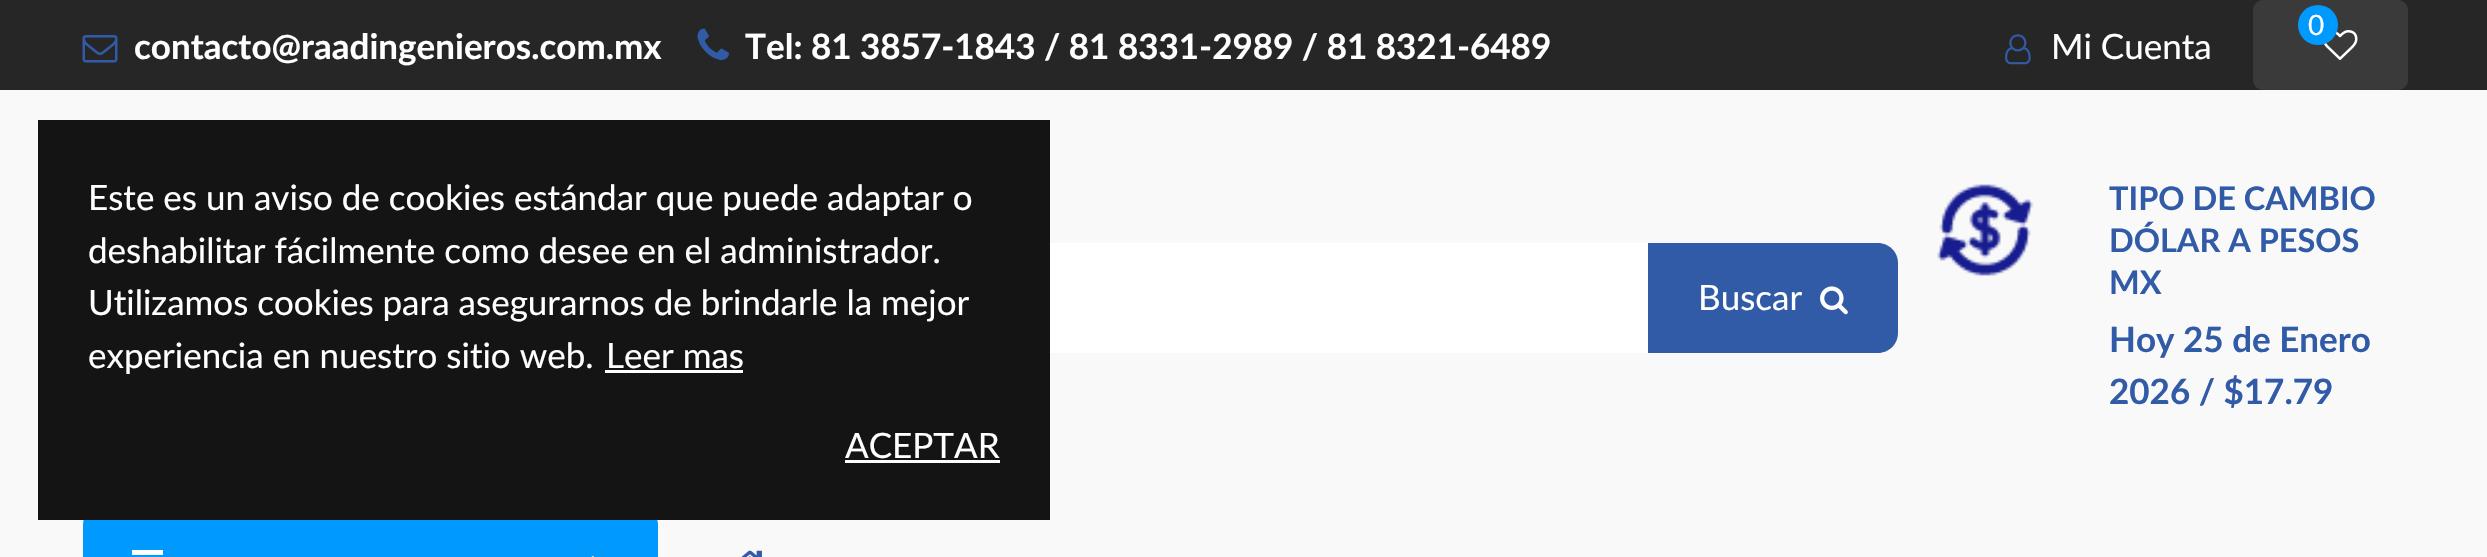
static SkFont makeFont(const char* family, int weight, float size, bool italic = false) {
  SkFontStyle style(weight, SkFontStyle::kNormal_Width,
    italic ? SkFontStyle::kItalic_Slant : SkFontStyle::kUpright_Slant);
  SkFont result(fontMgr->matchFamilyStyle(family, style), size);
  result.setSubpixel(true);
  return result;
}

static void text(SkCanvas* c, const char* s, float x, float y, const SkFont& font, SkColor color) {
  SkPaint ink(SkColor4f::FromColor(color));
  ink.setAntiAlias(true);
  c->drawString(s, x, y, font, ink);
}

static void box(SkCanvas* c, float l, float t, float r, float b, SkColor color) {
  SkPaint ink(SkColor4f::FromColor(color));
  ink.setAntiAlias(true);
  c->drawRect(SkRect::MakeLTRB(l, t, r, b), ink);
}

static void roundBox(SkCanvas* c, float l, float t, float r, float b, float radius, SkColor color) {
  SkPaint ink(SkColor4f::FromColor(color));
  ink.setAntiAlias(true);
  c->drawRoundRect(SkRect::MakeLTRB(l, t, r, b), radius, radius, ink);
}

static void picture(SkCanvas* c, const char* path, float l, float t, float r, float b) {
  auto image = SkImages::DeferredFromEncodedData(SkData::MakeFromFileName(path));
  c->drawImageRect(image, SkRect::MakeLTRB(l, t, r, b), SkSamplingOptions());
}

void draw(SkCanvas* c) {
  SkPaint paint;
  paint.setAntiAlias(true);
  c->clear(0xff262626);
  picture(c, "img_01.png", 82, 35, 118, 63);
  SkFont face1 = makeFont("Lato", 700, 35);
  text(c, "contacto@raadingenieros.com.mx", 134, 59, face1, 0xffffffff);
  picture(c, "img_02.png", 697, 28, 729, 60);
  text(c, "Tel: 81 3857-1843 / 81 8331-2989 / 81 8321-6489", 745, 59, face1, 0xffffffff);
  roundBox(c, 2253, 0, 2408, 90, 10, 0xff3a3a3a);
  picture(c, "img_03.png", 2324, 30, 2358, 60);
  paint.setColor(0xff009aff);
  c->drawCircle(2318, 25, 20, paint);
  SkFont face2 = makeFont("Lato", 400, 28);
  text(c, "0", 2308, 35, face2, 0xffffffff);
  picture(c, "img_04.png", 2005, 34, 2031, 65);
  SkFont face3 = makeFont("Lato", 400, 35);
  text(c, "Mi Cuenta", 2051, 59, face3, 0xffffffff);
  box(c, 0, 90, 2487, 557, 0xfff9f9f9);
  roundBox(c, 498, 243, 1898, 353, 20, 0xffffffff);
  paint.setColor(0xff325ba7);
  c->drawPath(SkPathBuilder().moveTo(1648, 243).lineTo(1878, 243).cubicTo(1889, 243, 1898, 252, 1898, 263).lineTo(1898, 333).cubicTo(1898, 344, 1889, 353, 1878, 353).lineTo(1648, 353).close().detach(), paint);
  text(c, "Buscar", 1698, 310, face3, 0xffffffff);
  picture(c, "img_05.png", 1820, 286, 1848, 315);
  picture(c, "img_06.png", 1937, 184, 2034, 276);
  SkFont face4 = makeFont("Lato", 700, 32.5f);
  text(c, "TIPO DE CAMBIO", 2109, 210, face4, 0xff325ba7);
  text(c, "DÓLAR A PESOS", 2109, 252, face4, 0xff325ba7);
  text(c, "MX", 2109, 294, face4, 0xff325ba7);
  text(c, "Hoy 25 de Enero", 2109, 352, face1, 0xff325ba7);
  text(c, "2026 / $17.79", 2109, 404, face1, 0xff325ba7);
  paint.setColor(0xff009aff);
  c->drawPath(SkPathBuilder().moveTo(103, 505).lineTo(638, 505).cubicTo(649, 505, 658, 514, 658, 525).lineTo(658, 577).lineTo(83, 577).lineTo(83, 525).cubicTo(83, 514, 92, 505, 103, 505).close().detach(), paint);
  box(c, 132, 550, 163, 555, 0xffffffff);
  picture(c, "img_07.png", 591, 556, 594, 557);
  picture(c, "img_08.png", 741, 550, 762, 557);
  box(c, 38, 120, 1050, 520, 0xff141414);
  text(c, "Este es un aviso de cookies estándar que puede adaptar o", 88, 210, face3, 0xffffffff);
  text(c, "deshabilitar fácilmente como desee en el administrador.", 88, 263, face3, 0xffffffff);
  text(c, "Utilizamos cookies para asegurarnos de brindarle la mejor", 88, 315, face3, 0xffffffff);
  text(c, "experiencia en nuestro sitio web.", 88, 368, face3, 0xffffffff);
  text(c, "Leer mas", 606, 368, face3, 0xffffffff);
  box(c, 605, 370, 743, 373, 0xffffffff);
  text(c, "ACEPTAR", 845, 458, face3, 0xffffffff);
  box(c, 845, 460, 1000, 463, 0xffffffff);
}
